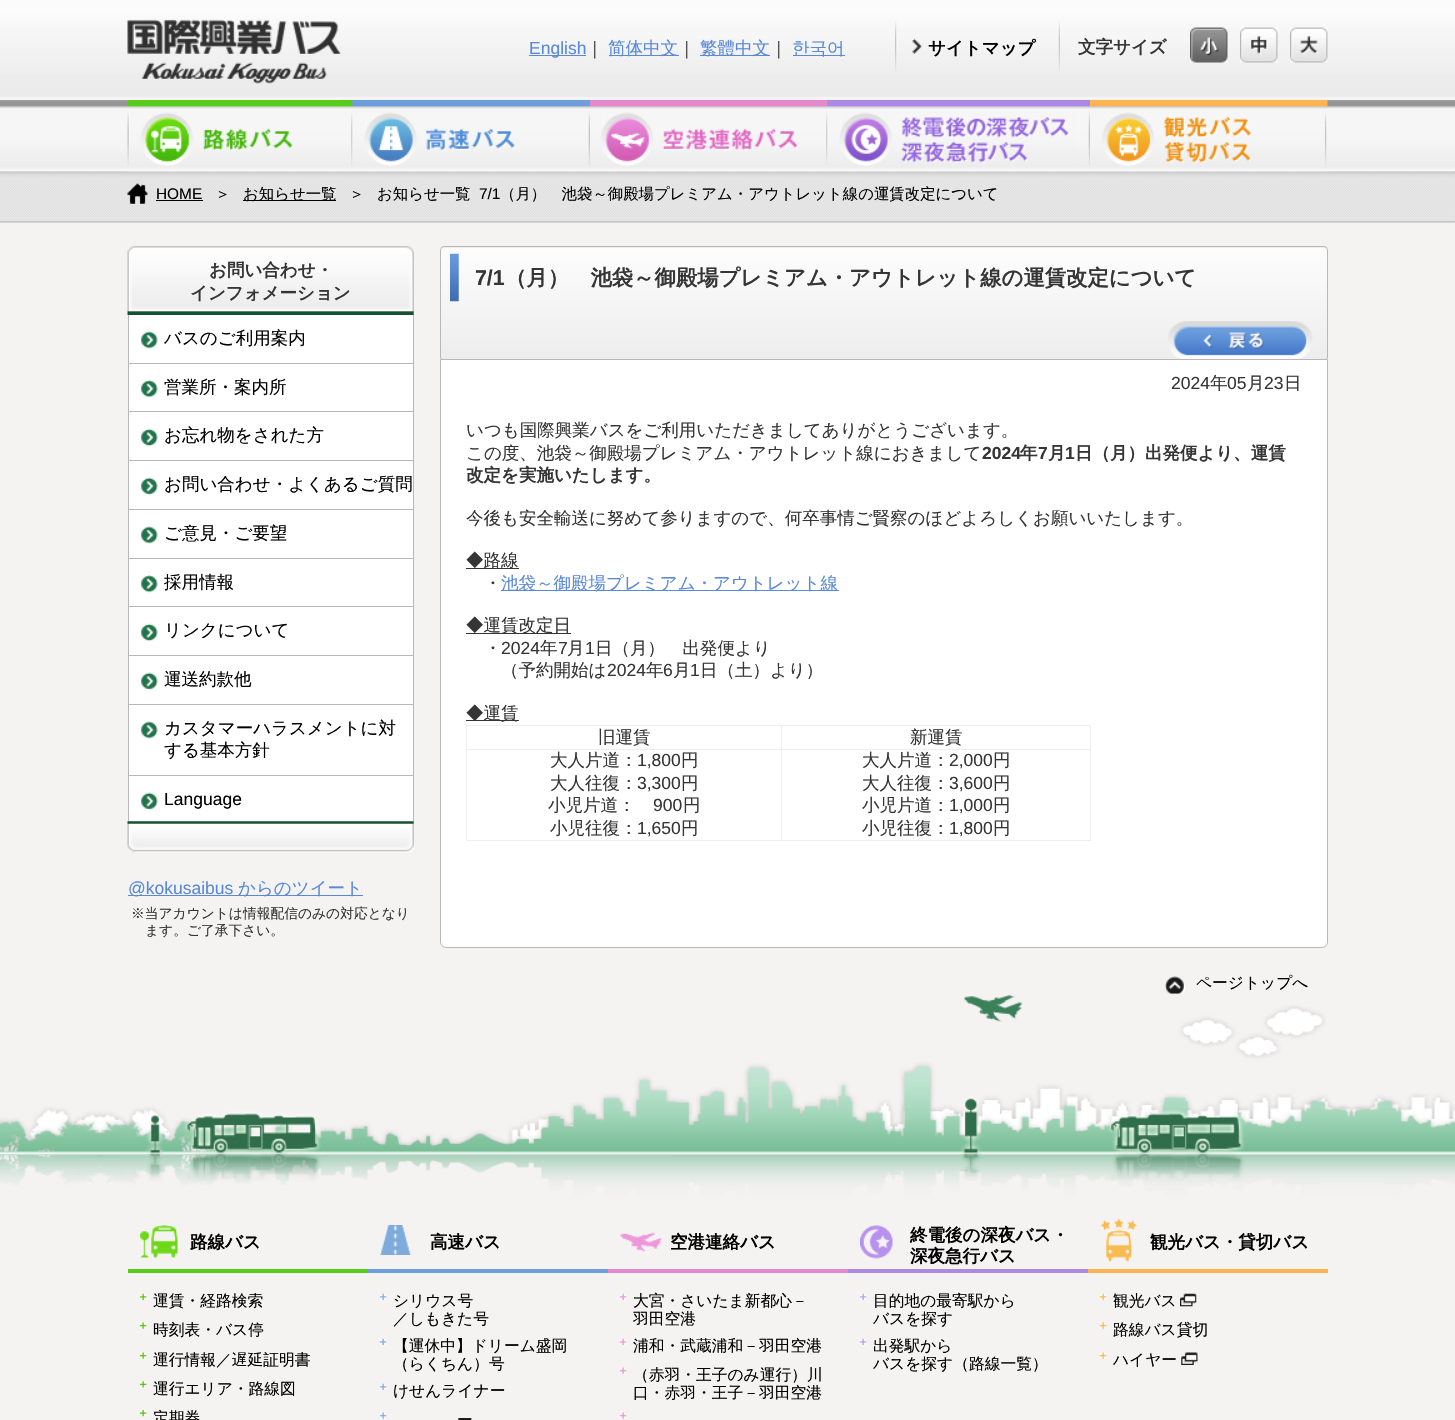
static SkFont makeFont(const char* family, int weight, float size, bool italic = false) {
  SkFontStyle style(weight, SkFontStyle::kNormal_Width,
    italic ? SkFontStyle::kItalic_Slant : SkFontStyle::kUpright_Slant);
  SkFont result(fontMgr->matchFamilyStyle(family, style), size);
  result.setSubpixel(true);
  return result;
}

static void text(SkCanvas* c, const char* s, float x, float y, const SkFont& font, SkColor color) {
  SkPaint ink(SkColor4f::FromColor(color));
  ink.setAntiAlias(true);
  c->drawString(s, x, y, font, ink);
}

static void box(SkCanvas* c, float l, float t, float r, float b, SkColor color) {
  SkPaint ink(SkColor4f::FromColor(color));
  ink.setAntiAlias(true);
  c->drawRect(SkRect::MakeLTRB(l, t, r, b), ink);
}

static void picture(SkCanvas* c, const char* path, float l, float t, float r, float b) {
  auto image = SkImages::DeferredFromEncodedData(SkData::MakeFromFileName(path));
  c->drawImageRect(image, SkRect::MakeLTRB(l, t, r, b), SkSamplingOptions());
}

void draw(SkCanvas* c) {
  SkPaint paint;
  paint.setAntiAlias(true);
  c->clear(0xfff5f2f2);
  picture(c, "img_01.png", 0, 0, 1455, 223);
  picture(c, "img_02.png", 127, 19, 341, 100);
  box(c, 529, 55, 586, 56, 0xff5989d7);
  SkFont face1 = makeFont("Liberation Sans", 400, 17.5f);
  text(c, "English", 529, 54, face1, 0xff5989d7);
  SkFont face2 = makeFont("WenQuanYi Zen Hei", 500, 17.5f);
  text(c, "｜", 586, 54, face2, 0xff353535);
  box(c, 609, 55, 679, 56, 0xff5989d7);
  text(c, "简体中文", 608, 54, face2, 0xff5989d7);
  text(c, "｜", 678, 54, face2, 0xff353535);
  box(c, 700, 55, 770, 56, 0xff5989d7);
  text(c, "繁體中文", 700, 54, face2, 0xff5989d7);
  text(c, "｜", 770, 54, face2, 0xff353535);
  box(c, 793, 55, 845, 56, 0xff5989d7);
  text(c, "한국어", 792, 54, face2, 0xff5989d7);
  picture(c, "img_03.png", 895, 21, 922, 72);
  SkFont face3 = makeFont("WenQuanYi Zen Hei", 700, 17.5f);
  text(c, "サイトマップ", 928, 54, face3, 0xff000000);
  picture(c, "img_04.png", 1058, 21, 1060, 72);
  text(c, "文字サイズ", 1078, 53, face3, 0xff353535);
  picture(c, "img_05.png", 1190, 27, 1228, 63);
  picture(c, "img_06.png", 1240, 27, 1278, 63);
  picture(c, "img_07.png", 1290, 27, 1328, 63);
  picture(c, "img_08.png", 127, 100, 353, 172);
  picture(c, "img_09.png", 352, 100, 590, 172);
  picture(c, "img_10.png", 590, 100, 828, 172);
  picture(c, "img_11.png", 827, 100, 1090, 172);
  picture(c, "img_12.png", 1090, 100, 1328, 172);
  picture(c, "img_13.png", 127, 183, 148, 204);
  SkFont face4 = makeFont("Liberation Sans", 400, 15.4f);
  text(c, "HOME", 156, 199, face4, 0xff000000);
  box(c, 156, 200, 203, 201, 0xff000000);
  SkFont face5 = makeFont("WenQuanYi Zen Hei", 500, 15.4f);
  text(c, "＞", 215, 199, face5, 0xff000000);
  box(c, 243, 200, 336, 201, 0xff000000);
  text(c, "お知らせ一覧", 243, 199, face5, 0xff000000);
  text(c, "＞", 349, 199, face5, 0xff000000);
  text(c, "お知らせ一覧", 377, 199, face5, 0xff000000);
  text(c, "7/1", 479, 199, face4, 0xff000000);
  text(c, "（月）　池袋～御殿場プレミアム・アウトレット線の運賃改定について", 500, 199, face5, 0xff000000);
  picture(c, "img_14.png", 127, 246, 414, 315);
  text(c, "お問い合わせ・", 209, 276, face3, 0xff353535);
  text(c, "インフォメーション", 190, 299, face3, 0xff353535);
  box(c, 129, 315, 413, 821, 0xffffffff);
  box(c, 413, 315, 414, 821, 0xffb8b8b8);
  box(c, 128, 315, 129, 821, 0xffb8b8b8);
  picture(c, "img_15.png", 141, 331, 158, 349);
  box(c, 129, 363, 413, 364, 0xffb8b8b8);
  text(c, "バスのご利用案内", 164, 344, face2, 0xff000000);
  picture(c, "img_16.png", 141, 380, 158, 398);
  box(c, 129, 411, 413, 412, 0xffb8b8b8);
  text(c, "営業所・案内所", 164, 393, face2, 0xff000000);
  picture(c, "img_17.png", 141, 428, 158, 447);
  box(c, 129, 460, 413, 461, 0xffb8b8b8);
  text(c, "お忘れ物をされた方", 164, 441, face2, 0xff000000);
  picture(c, "img_18.png", 141, 477, 158, 495);
  box(c, 129, 509, 413, 510, 0xffb8b8b8);
  text(c, "お問い合わせ・よくあるご質問", 164, 490, face2, 0xff000000);
  picture(c, "img_15.png", 141, 526, 158, 544);
  box(c, 129, 558, 413, 559, 0xffb8b8b8);
  text(c, "ご意見・ご要望", 164, 539, face2, 0xff000000);
  picture(c, "img_16.png", 141, 575, 158, 593);
  box(c, 129, 606, 413, 607, 0xffb8b8b8);
  text(c, "採用情報", 164, 588, face2, 0xff000000);
  picture(c, "img_17.png", 141, 623, 158, 642);
  box(c, 129, 655, 413, 656, 0xffb8b8b8);
  text(c, "リンクについて", 164, 636, face2, 0xff000000);
  picture(c, "img_18.png", 141, 672, 158, 690);
  box(c, 129, 704, 413, 705, 0xffb8b8b8);
  text(c, "運送約款他", 164, 685, face2, 0xff000000);
  picture(c, "img_15.png", 141, 721, 158, 739);
  box(c, 129, 775, 413, 776, 0xffb8b8b8);
  text(c, "カスタマーハラスメントに対", 164, 734, face2, 0xff000000);
  text(c, "する基本方針", 164, 756, face2, 0xff000000);
  picture(c, "img_18.png", 141, 792, 158, 810);
  text(c, "Language", 164, 805, face1, 0xff000000);
  picture(c, "img_19.png", 127, 821, 414, 853);
  box(c, 128, 895, 363, 896, 0xff5989d7);
  text(c, "@kokusaibus", 128, 894, face1, 0xff5989d7);
  text(c, "からのツイート", 238, 894, face2, 0xff5989d7);
  SkFont face6 = makeFont("WenQuanYi Zen Hei", 500, 13.75f);
  text(c, "※当アカウントは情報配信のみの対応となり", 131, 918, face6, 0xff353535);
  text(c, "ます。ご了承下さい。", 145, 935, face6, 0xff353535);
  c->save();
  c->clipPath(SkPathBuilder().moveTo(444, 246).lineTo(1324, 246).cubicTo(1326, 246, 1328, 248, 1328, 250).lineTo(1328, 357).cubicTo(1328, 359, 1326, 361, 1324, 361).lineTo(444, 361).cubicTo(442, 361, 440, 359, 440, 357).lineTo(440, 250).cubicTo(440, 248, 442, 246, 444, 246).close().detach(), true);
  {
    const SkColor colors[] = {0xfffdfdfd, 0xffededed};
    const float stops[] = {0, 1};
    const SkPoint ends[] = {{884, 135}, {884, 248}};
    paint.setShader(SkGradientShader::MakeLinear(ends, colors, stops, 2, SkTileMode::kClamp));
    paint.setAlpha(255);
  }
  c->drawRect(SkRect::MakeLTRB(440, 246, 1328, 248), paint);
  {
    const SkColor colors[] = {0xfffdfdfd, 0xffededed};
    const float stops[] = {0, 1};
    const SkPoint ends[] = {{884, 247}, {884, 360}};
    paint.setShader(SkGradientShader::MakeLinear(ends, colors, stops, 2, SkTileMode::kClamp));
    paint.setAlpha(255);
  }
  c->drawRect(SkRect::MakeLTRB(440, 248, 1328, 359), paint);
  c->restore();
  paint.setStyle(SkPaint::kStroke_Style);
  paint.setStrokeWidth(1);
  paint.setShader(nullptr);
  paint.setColor(0xffb8b8b8);
  c->drawRoundRect(SkRect::MakeLTRB(440.5f, 246.5f, 1327.5f, 360.5f), 3.5f, 3.5f, paint);
  picture(c, "img_20.png", 450, 253, 459, 302);
  SkFont face7 = makeFont("Liberation Sans", 700, 21.35f);
  text(c, "7/1", 475, 285, face7, 0xff353535);
  SkFont face8 = makeFont("WenQuanYi Zen Hei", 700, 21.35f);
  text(c, "（月）　池袋～御殿場プレミアム・アウトレット線の運賃改定について", 505, 285, face8, 0xff353535);
  picture(c, "img_21.png", 1168, 321, 1313, 359);
  paint.setStyle(SkPaint::kFill_Style);
  paint.setColor(0xffffffff);
  c->drawPath(SkPathBuilder().moveTo(440.5f, 359.5f).lineTo(1327.5f, 359.5f).lineTo(1327.5f, 942).cubicTo(1327.5f, 945, 1325, 947.5f, 1322, 947.5f).lineTo(446, 947.5f).cubicTo(443, 947.5f, 440.5f, 945, 440.5f, 942).close().detach(), paint);
  paint.setStyle(SkPaint::kStroke_Style);
  paint.setColor(0xffb8b8b8);
  c->drawPath(SkPathBuilder().moveTo(440.5f, 359.5f).lineTo(1327.5f, 359.5f).lineTo(1327.5f, 942).cubicTo(1327.5f, 945, 1325, 947.5f, 1322, 947.5f).lineTo(446, 947.5f).cubicTo(443, 947.5f, 440.5f, 945, 440.5f, 942).close().detach(), paint);
  text(c, "2024", 1171, 389, face1, 0xff353535);
  text(c, "年", 1210, 389, face2, 0xff353535);
  text(c, "05", 1227, 389, face1, 0xff353535);
  text(c, "月", 1247, 389, face2, 0xff353535);
  text(c, "23", 1264, 389, face1, 0xff353535);
  text(c, "日", 1284, 389, face2, 0xff353535);
  text(c, "いつも国際興業バスをご利用いただきましてありがとうございます。", 466, 436, face2, 0xff353535);
  text(c, "この度、池袋～御殿場プレミアム・アウトレット線におきまして", 466, 459, face2, 0xff353535);
  SkFont face9 = makeFont("Liberation Sans", 700, 17.5f);
  text(c, "2024", 982, 459, face9, 0xff353535);
  text(c, "年", 1020, 459, face3, 0xff353535);
  text(c, "7", 1038, 459, face9, 0xff353535);
  text(c, "月", 1048, 459, face3, 0xff353535);
  text(c, "1", 1065, 459, face9, 0xff353535);
  text(c, "日（月）出発便より、運賃", 1075, 459, face3, 0xff353535);
  text(c, "改定を実施いたします。", 466, 481, face3, 0xff353535);
  text(c, "今後も安全輸送に努めて参りますので、何卒事情ご賢察のほどよろしくお願いいたします。", 466, 524, face2, 0xff353535);
  box(c, 466, 568, 519, 569, 0xff353535);
  text(c, "◆路線", 466, 566, face2, 0xff353535);
  text(c, "・", 484, 589, face2, 0xff353535);
  box(c, 501, 590, 839, 591, 0xff5989d7);
  text(c, "池袋～御殿場プレミアム・アウトレット線", 501, 589, face2, 0xff5989d7);
  box(c, 466, 633, 571, 634, 0xff353535);
  text(c, "◆運賃改定日", 466, 631, face2, 0xff353535);
  text(c, "・", 484, 654, face2, 0xff353535);
  text(c, "2024", 501, 654, face1, 0xff353535);
  text(c, "年", 540, 654, face2, 0xff353535);
  text(c, "7", 558, 654, face1, 0xff353535);
  text(c, "月", 567, 654, face2, 0xff353535);
  text(c, "1", 585, 654, face1, 0xff353535);
  text(c, "日（月）　出発便より", 595, 654, face2, 0xff353535);
  text(c, "（予約開始は", 501, 676, face2, 0xff353535);
  text(c, "2024", 607, 676, face1, 0xff353535);
  text(c, "年", 646, 676, face2, 0xff353535);
  text(c, "6", 663, 676, face1, 0xff353535);
  text(c, "月", 673, 676, face2, 0xff353535);
  text(c, "1", 690, 676, face1, 0xff353535);
  text(c, "日（土）より）", 700, 676, face2, 0xff353535);
  box(c, 466, 720, 519, 721, 0xff353535);
  text(c, "◆運賃", 466, 719, face2, 0xff353535);
  box(c, 781, 725, 1091, 726, 0xffeeeeee);
  box(c, 781, 749, 1091, 750, 0xffeeeeee);
  box(c, 1090, 749, 1091, 841, 0xffeeeeee);
  box(c, 781, 840, 1091, 841, 0xffeeeeee);
  box(c, 781, 749, 782, 841, 0xffeeeeee);
  box(c, 466, 749, 783, 750, 0xffeeeeee);
  box(c, 781, 725, 782, 750, 0xffeeeeee);
  box(c, 466, 725, 783, 726, 0xffeeeeee);
  box(c, 466, 840, 783, 841, 0xffeeeeee);
  box(c, 466, 749, 467, 841, 0xffeeeeee);
  box(c, 466, 725, 467, 750, 0xffeeeeee);
  text(c, "旧運賃", 598, 743, face2, 0xff353535);
  box(c, 1090, 725, 1091, 750, 0xffeeeeee);
  text(c, "新運賃", 910, 743, face2, 0xff353535);
  text(c, "大人片道：", 550, 766, face2, 0xff353535);
  text(c, "1,800", 637, 766, face1, 0xff353535);
  text(c, "円", 681, 766, face2, 0xff353535);
  text(c, "大人往復：", 550, 789, face2, 0xff353535);
  text(c, "3,300", 637, 789, face1, 0xff353535);
  text(c, "円", 681, 789, face2, 0xff353535);
  text(c, "小児片道：", 548, 811, face2, 0xff353535);
  text(c, "900", 653, 811, face1, 0xff353535);
  text(c, "円", 683, 811, face2, 0xff353535);
  text(c, "小児往復：", 550, 834, face2, 0xff353535);
  text(c, "1,650", 637, 834, face1, 0xff353535);
  text(c, "円", 681, 834, face2, 0xff353535);
  text(c, "大人片道：", 862, 766, face2, 0xff353535);
  text(c, "2,000", 949, 766, face1, 0xff353535);
  text(c, "円", 993, 766, face2, 0xff353535);
  text(c, "大人往復：", 862, 789, face2, 0xff353535);
  text(c, "3,600", 949, 789, face1, 0xff353535);
  text(c, "円", 993, 789, face2, 0xff353535);
  text(c, "小児片道：", 862, 811, face2, 0xff353535);
  text(c, "1,000", 949, 811, face1, 0xff353535);
  text(c, "円", 993, 811, face2, 0xff353535);
  text(c, "小児往復：", 862, 834, face2, 0xff353535);
  text(c, "1,800", 949, 834, face1, 0xff353535);
  text(c, "円", 993, 834, face2, 0xff353535);
  picture(c, "img_22.png", 1165, 976, 1185, 994);
  SkFont face10 = makeFont("WenQuanYi Zen Hei", 500, 15.75f);
  text(c, "ページトップへ", 1196, 988, face10, 0xff000000);
  picture(c, "img_23.png", 0, 993, 1455, 1420);
  picture(c, "img_24.png", 140, 1225, 178, 1258);
  box(c, 128, 1269, 368, 1273, 0xff57cc1b);
  text(c, "路線バス", 190, 1248, face3, 0xff000000);
  picture(c, "img_25.png", 140, 1293, 147, 1300);
  text(c, "運賃・経路検索", 153, 1306, face10, 0xff000000);
  picture(c, "img_26.png", 140, 1322, 147, 1329);
  text(c, "時刻表・バス停", 153, 1335, face10, 0xff000000);
  picture(c, "img_26.png", 140, 1352, 147, 1359);
  text(c, "運行情報／遅延証明書", 153, 1365, face10, 0xff000000);
  picture(c, "img_27.png", 140, 1381, 147, 1388);
  text(c, "運行エリア・路線図", 153, 1394, face10, 0xff000000);
  picture(c, "img_28.png", 140, 1410, 147, 1417);
  text(c, "定期券", 153, 1423, face10, 0xff000000);
  picture(c, "img_29.png", 380, 1225, 411, 1255);
  box(c, 368, 1269, 608, 1273, 0xff6e9fdc);
  text(c, "高速バス", 430, 1248, face3, 0xff000000);
  picture(c, "img_30.png", 380, 1293, 387, 1300);
  text(c, "シリウス号", 393, 1306, face10, 0xff000000);
  text(c, "／しもきた号", 393, 1324, face10, 0xff000000);
  picture(c, "img_30.png", 380, 1338, 387, 1345);
  text(c, "【運休中】ドリーム盛岡", 393, 1351, face10, 0xff000000);
  text(c, "（らくちん）号", 393, 1369, face10, 0xff000000);
  picture(c, "img_30.png", 380, 1383, 387, 1390);
  text(c, "けせんライナー", 393, 1396, face10, 0xff000000);
  picture(c, "img_31.png", 380, 1412, 387, 1419);
  text(c, "ー", 457, 1425, face10, 0xff000000);
  picture(c, "img_32.png", 620, 1232, 662, 1253);
  box(c, 608, 1269, 848, 1273, 0xffe489cd);
  text(c, "空港連絡バス", 670, 1248, face3, 0xff000000);
  picture(c, "img_33.png", 620, 1293, 627, 1300);
  text(c, "大宮・さいたま新都心－", 633, 1306, face10, 0xff000000);
  text(c, "羽田空港", 633, 1324, face10, 0xff000000);
  picture(c, "img_33.png", 620, 1338, 627, 1345);
  text(c, "浦和・武蔵浦和－羽田空港", 633, 1351, face10, 0xff000000);
  picture(c, "img_34.png", 620, 1367, 627, 1374);
  text(c, "（赤羽・王子のみ運行）川", 633, 1380, face10, 0xff000000);
  text(c, "口・赤羽・王子－羽田空港", 633, 1398, face10, 0xff000000);
  picture(c, "img_34.png", 620, 1412, 627, 1419);
  picture(c, "img_35.png", 860, 1225, 893, 1259);
  box(c, 848, 1269, 1088, 1273, 0xffab89e4);
  text(c, "終電後の深夜バス・", 910, 1241, face3, 0xff000000);
  text(c, "深夜急行バス", 910, 1262, face3, 0xff000000);
  picture(c, "img_36.png", 860, 1293, 867, 1300);
  text(c, "目的地の最寄駅から", 873, 1306, face10, 0xff000000);
  text(c, "バスを探す", 873, 1324, face10, 0xff000000);
  picture(c, "img_36.png", 860, 1338, 867, 1345);
  text(c, "出発駅から", 873, 1351, face10, 0xff000000);
  text(c, "バスを探す（路線一覧）", 873, 1369, face10, 0xff000000);
  picture(c, "img_37.png", 1100, 1218, 1138, 1262);
  box(c, 1088, 1269, 1328, 1273, 0xffffb452);
  text(c, "観光バス・貸切バス", 1150, 1248, face3, 0xff000000);
  picture(c, "img_38.png", 1100, 1293, 1107, 1300);
  text(c, "観光バス", 1113, 1306, face10, 0xff000000);
  picture(c, "img_39.png", 1180, 1293, 1197, 1307);
  picture(c, "img_40.png", 1100, 1322, 1107, 1329);
  text(c, "路線バス貸切", 1113, 1335, face10, 0xff000000);
  picture(c, "img_40.png", 1100, 1352, 1107, 1359);
  text(c, "ハイヤー", 1113, 1365, face10, 0xff000000);
  picture(c, "img_41.png", 1181, 1352, 1198, 1365);
}
